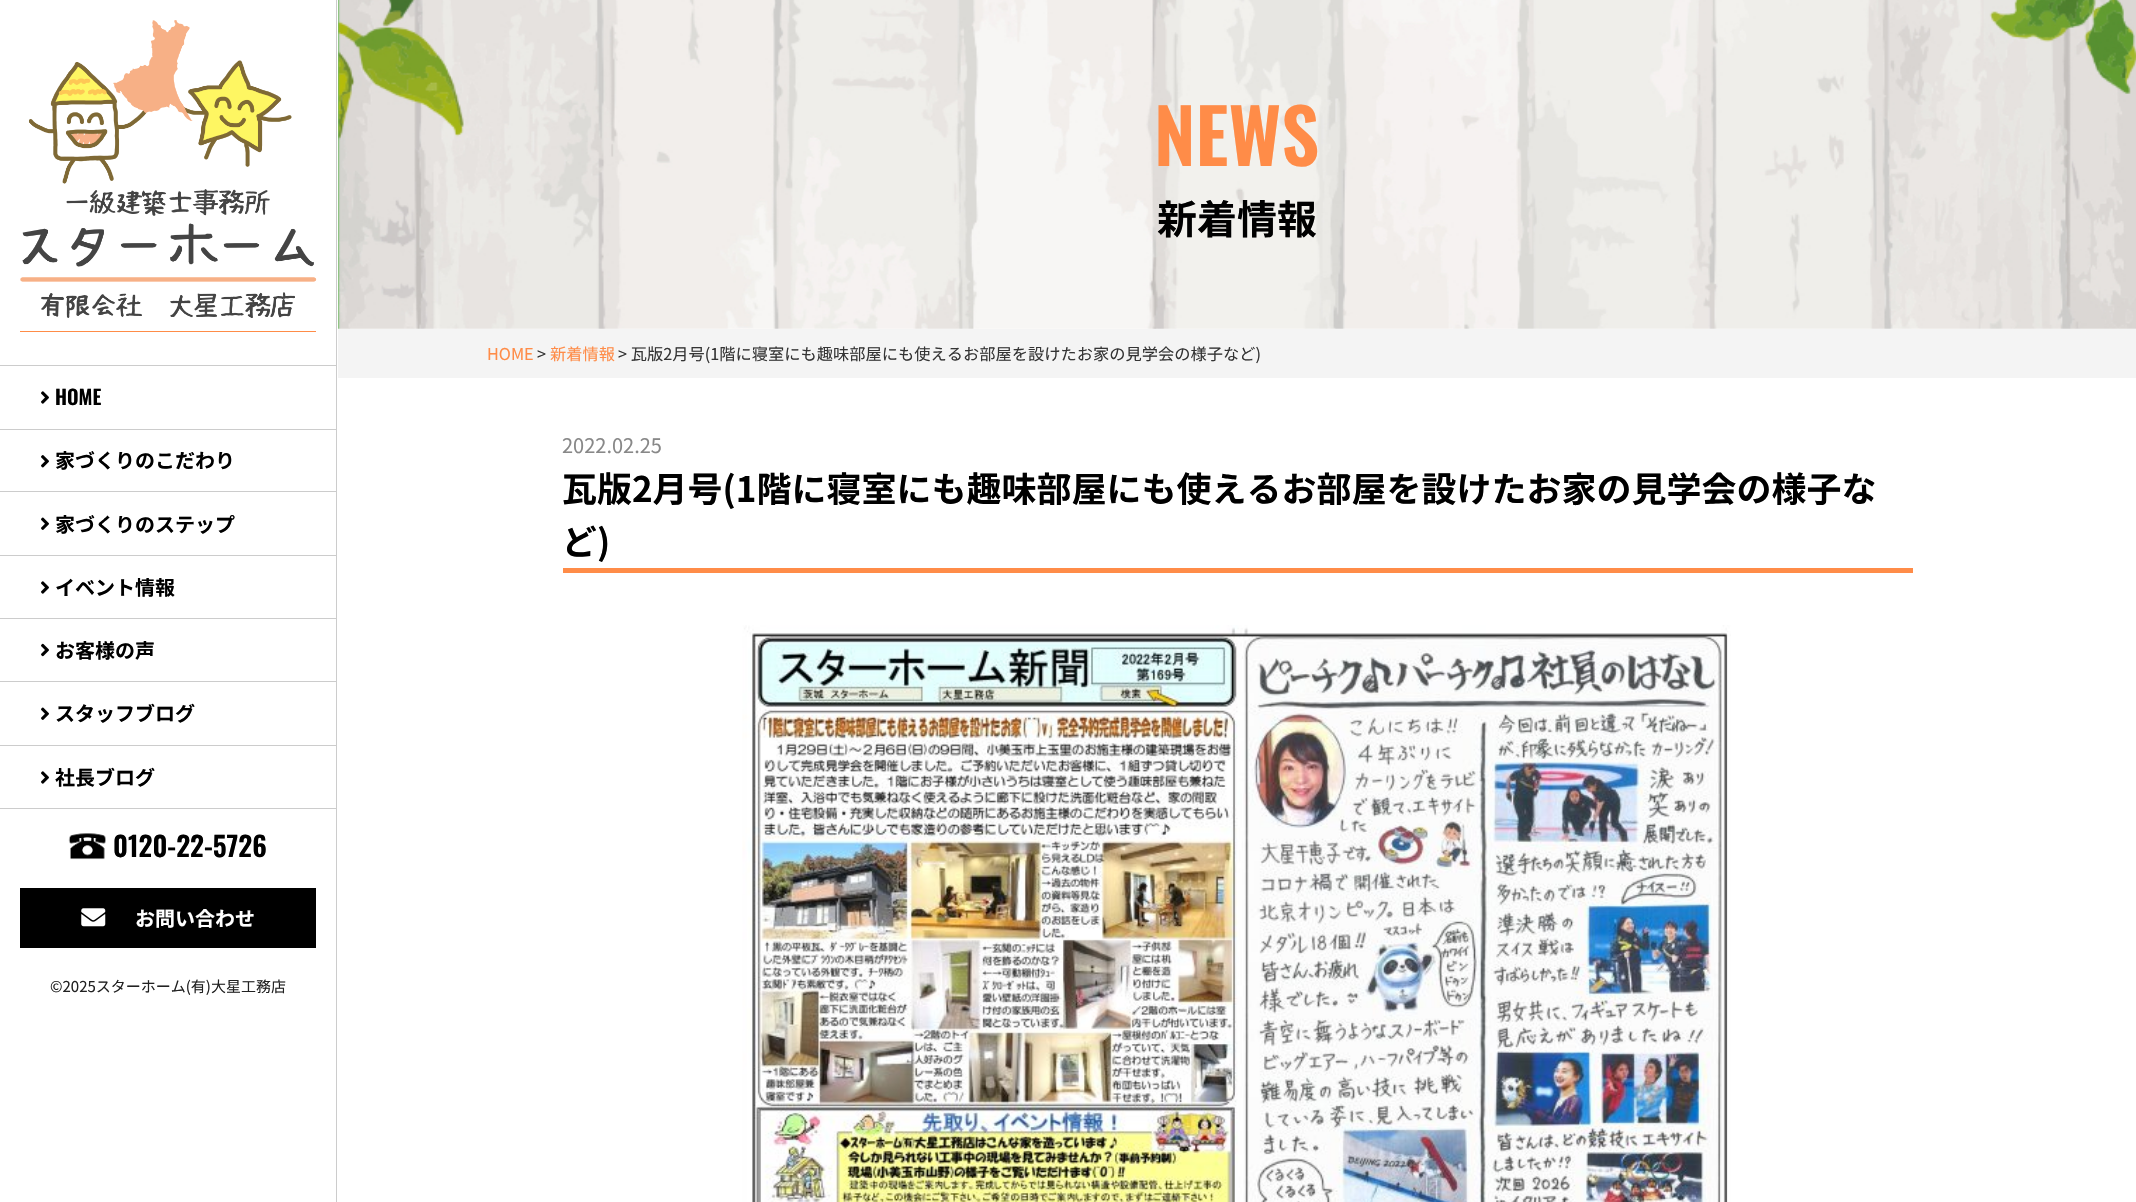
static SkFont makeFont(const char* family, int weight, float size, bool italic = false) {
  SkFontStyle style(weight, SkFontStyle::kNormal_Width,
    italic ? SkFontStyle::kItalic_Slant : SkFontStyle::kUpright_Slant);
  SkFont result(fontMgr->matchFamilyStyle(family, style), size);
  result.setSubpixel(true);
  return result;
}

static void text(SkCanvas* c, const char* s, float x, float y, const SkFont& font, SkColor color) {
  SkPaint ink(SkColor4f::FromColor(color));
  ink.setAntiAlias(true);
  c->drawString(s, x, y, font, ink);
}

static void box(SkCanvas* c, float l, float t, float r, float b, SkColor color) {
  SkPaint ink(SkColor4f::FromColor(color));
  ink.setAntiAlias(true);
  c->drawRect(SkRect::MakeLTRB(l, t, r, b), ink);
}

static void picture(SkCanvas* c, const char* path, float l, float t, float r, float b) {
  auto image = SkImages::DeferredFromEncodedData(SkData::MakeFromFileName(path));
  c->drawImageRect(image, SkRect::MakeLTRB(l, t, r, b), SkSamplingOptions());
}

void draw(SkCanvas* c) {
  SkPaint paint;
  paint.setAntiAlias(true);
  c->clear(0xffffffff);
  picture(c, "img_01.png", 338, 0, 2136, 329);
  SkFont face1 = makeFont("Oswald", 600, 75);
  text(c, "NEWS", 1154, 166, face1, 0xffff8c48);
  SkFont face2 = makeFont("Noto Sans JP", 700, 40);
  text(c, "新着情報", 1157, 234, face2, 0xff000000);
  box(c, 338, 329, 2136, 378, 0xfff4f4f4);
  SkFont face3 = makeFont("Noto Sans JP", 400, 16.25f);
  text(c, "HOME", 487, 360, face3, 0xffff8c48);
  text(c, ">", 537, 360, face3, 0xff343434);
  text(c, "新着情報", 550, 360, face3, 0xffff8c48);
  text(c, "> 瓦版2月号(1階に寝室にも趣味部屋にも使えるお部屋を設けたお家の見学会の様子など)", 618, 360, face3, 0xff343434);
  SkFont face4 = makeFont("Noto Sans JP", 400, 20);
  text(c, "2022.02.25", 562, 453, face4, 0xff888888);
  box(c, 563, 568, 1913, 573, 0xffff8c48);
  SkFont face5 = makeFont("Noto Sans JP", 700, 35);
  text(c, "瓦版2月号(1階に寝室にも趣味部屋にも使えるお部屋を設けたお家の見学会の様子な", 562, 502, face5, 0xff000000);
  text(c, "ど)", 562, 555, face5, 0xff000000);
  picture(c, "img_02.png", 742, 625, 1731, 1202);
  box(c, 336, 0, 337, 1202, 0xffcccccc);
  box(c, 20, 331, 316, 332, 0xffff8c48);
  picture(c, "img_03.png", 20, 20, 317, 318);
  box(c, 0, 365, 336, 366, 0xffcccccc);
  box(c, 0, 429, 336, 430, 0xffcccccc);
  picture(c, "img_04.png", 41, 391, 49, 404);
  SkFont face6 = makeFont("Oswald", 600, 20);
  text(c, "HOME", 55, 405, face6, 0xff000000);
  box(c, 0, 491, 336, 492, 0xffcccccc);
  picture(c, "img_05.png", 41, 455, 49, 468);
  SkFont face7 = makeFont("Noto Sans JP", 700, 20);
  text(c, "家づくりのこだわり", 55, 468, face7, 0xff000000);
  box(c, 0, 555, 336, 556, 0xffcccccc);
  picture(c, "img_06.png", 41, 517, 49, 530);
  text(c, "家づくりのステップ", 55, 532, face7, 0xff000000);
  box(c, 0, 618, 336, 619, 0xffcccccc);
  picture(c, "img_04.png", 41, 581, 49, 594);
  text(c, "イベント情報", 55, 595, face7, 0xff000000);
  box(c, 0, 681, 336, 682, 0xffcccccc);
  picture(c, "img_07.png", 41, 643, 49, 657);
  text(c, "お客様の声", 55, 658, face7, 0xff000000);
  box(c, 0, 745, 336, 746, 0xffcccccc);
  picture(c, "img_06.png", 41, 707, 49, 720);
  text(c, "スタッフブログ", 55, 721, face7, 0xff000000);
  box(c, 0, 808, 336, 809, 0xffcccccc);
  picture(c, "img_04.png", 41, 771, 49, 784);
  text(c, "社長ブログ", 55, 785, face7, 0xff000000);
  picture(c, "img_08.png", 68, 833, 106, 860);
  SkFont face8 = makeFont("Oswald", 600, 27.5f);
  text(c, "0120-22-5726", 113, 857, face8, 0xff000000);
  box(c, 20, 888, 316, 948, 0xff000000);
  picture(c, "img_09.png", 81, 908, 106, 927);
  text(c, "お問い合わせ", 135, 926, face7, 0xffffffff);
  SkFont face9 = makeFont("Noto Sans JP", 400, 15);
  text(c, "©2025スターホーム(有)大星工務店", 50, 992, face9, 0xff212121);
}
